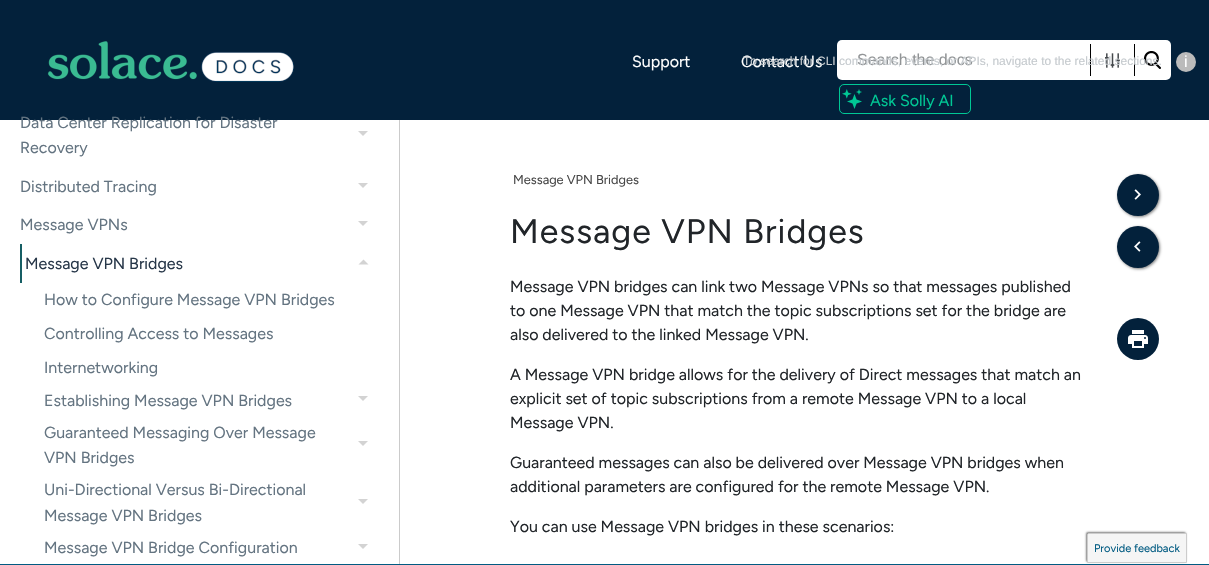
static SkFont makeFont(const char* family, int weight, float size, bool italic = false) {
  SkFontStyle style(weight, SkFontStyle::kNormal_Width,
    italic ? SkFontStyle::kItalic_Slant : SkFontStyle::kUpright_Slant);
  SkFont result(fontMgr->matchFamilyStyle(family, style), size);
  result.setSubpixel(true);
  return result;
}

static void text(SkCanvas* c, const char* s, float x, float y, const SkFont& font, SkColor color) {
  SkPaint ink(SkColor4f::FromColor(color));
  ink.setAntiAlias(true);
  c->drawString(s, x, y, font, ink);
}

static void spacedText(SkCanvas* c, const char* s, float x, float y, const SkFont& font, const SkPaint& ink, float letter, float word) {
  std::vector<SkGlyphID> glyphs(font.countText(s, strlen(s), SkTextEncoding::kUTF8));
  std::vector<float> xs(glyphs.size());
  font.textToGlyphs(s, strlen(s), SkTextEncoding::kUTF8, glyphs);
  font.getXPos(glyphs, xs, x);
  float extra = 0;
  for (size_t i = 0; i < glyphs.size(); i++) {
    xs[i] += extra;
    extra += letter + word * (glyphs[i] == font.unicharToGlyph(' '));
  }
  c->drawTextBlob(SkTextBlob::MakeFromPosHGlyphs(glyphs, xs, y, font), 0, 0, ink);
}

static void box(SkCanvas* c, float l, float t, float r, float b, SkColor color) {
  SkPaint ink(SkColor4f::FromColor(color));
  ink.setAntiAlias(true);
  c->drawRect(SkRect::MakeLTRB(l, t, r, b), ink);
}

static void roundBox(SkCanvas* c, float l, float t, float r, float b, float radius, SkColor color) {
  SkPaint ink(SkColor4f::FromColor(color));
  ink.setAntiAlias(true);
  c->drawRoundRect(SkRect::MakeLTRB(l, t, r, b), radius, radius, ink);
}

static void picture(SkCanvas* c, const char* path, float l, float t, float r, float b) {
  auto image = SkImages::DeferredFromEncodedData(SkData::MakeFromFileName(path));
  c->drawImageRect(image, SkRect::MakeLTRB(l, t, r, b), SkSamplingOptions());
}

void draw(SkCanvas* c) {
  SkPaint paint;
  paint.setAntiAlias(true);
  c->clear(0xffffffff);
  box(c, 0, 0, 1209, 120, 0xff03213b);
  SkFont face1 = makeFont("Figtree", 400, 16);
  text(c, "Support", 632, 67, face1, 0xffffffff);
  text(c, "Contact Us", 741, 67, face1, 0xffffffff);
  roundBox(c, 837, 40, 1171, 80, 5, 0xffffffff);
  SkFont face2 = makeFont("Liberation Sans", 400, 16);
  text(c, "Search the docs", 857, 65, face2, 0xff919496);
  picture(c, "img_01.png", 1105, 53, 1120, 68);
  box(c, 1134, 44, 1135, 76, 0xff000000);
  box(c, 1090, 44, 1091, 76, 0xff000000);
  picture(c, "img_02.png", 1144, 51, 1161, 69);
  paint.setColor(0xffbbbbbb);
  c->drawCircle(1186, 62, 10, paint);
  SkFont face3 = makeFont("Liberation Sans", 400, 12);
  text(c, "To search for CLI commands, events, or APIs, navigate to the related sections.", 743, 65, face3, 0xffc5cace);
  text(c, "i", 1184, 67, face2, 0xffffffff);
  paint.setStyle(SkPaint::kStroke_Style);
  paint.setStrokeWidth(1);
  paint.setColor(0xff00c895);
  c->drawRoundRect(SkRect::MakeLTRB(839.5f, 84.5f, 970.5f, 113.5f), 4.5f, 4.5f, paint);
  picture(c, "img_03.png", 842, 89, 862, 109);
  text(c, "Ask Solly AI", 870, 106, face1, 0xff00c895);
  picture(c, "img_04.png", 47, 41, 294, 82);
  box(c, 399, 120, 400, 564, 0xffcbcbcb);
  text(c, "Data Center Replication for Disaster", 20, 128, face1, 0xff647481);
  paint.setStyle(SkPaint::kFill_Style);
  paint.setColor(0xffd3d3d3);
  c->drawPath(SkPathBuilder().moveTo(358, 131).lineTo(368, 131).lineTo(363, 136).close().detach(), paint);
  text(c, "Recovery", 20, 153, face1, 0xff647481);
  text(c, "Distributed Tracing", 20, 192, face1, 0xff647481);
  c->drawPath(SkPathBuilder().moveTo(358, 183).lineTo(368, 183).lineTo(363, 188).close().detach(), paint);
  text(c, "Message VPNs", 20, 230, face1, 0xff647481);
  c->drawPath(SkPathBuilder().moveTo(358, 221).lineTo(368, 221).lineTo(363, 226).close().detach(), paint);
  box(c, 20, 244, 22, 283, 0xff165e64);
  text(c, "Message VPN Bridges", 25, 269, face1, 0xff273749);
  c->drawPath(SkPathBuilder().moveTo(368.5f, 264.5f).lineTo(358.5f, 264.5f).lineTo(363.5f, 259.5f).close().detach(), paint);
  text(c, "How to Configure Message VPN Bridges", 44, 305, face1, 0xff647481);
  text(c, "Controlling Access to Messages", 44, 339, face1, 0xff647481);
  text(c, "Internetworking", 44, 373, face1, 0xff647481);
  text(c, "Establishing Message VPN Bridges", 44, 406, face1, 0xff647481);
  c->drawPath(SkPathBuilder().moveTo(358, 396).lineTo(368, 396).lineTo(363, 401).close().detach(), paint);
  text(c, "Guaranteed Messaging Over Message", 44, 438, face1, 0xff647481);
  c->drawPath(SkPathBuilder().moveTo(358, 441).lineTo(368, 441).lineTo(363, 446).close().detach(), paint);
  text(c, "VPN Bridges", 44, 463, face1, 0xff647481);
  text(c, "Uni-Directional Versus Bi-Directional", 44, 495, face1, 0xff647481);
  c->drawPath(SkPathBuilder().moveTo(358, 499).lineTo(368, 499).lineTo(363, 504).close().detach(), paint);
  text(c, "Message VPN Bridges", 44, 521, face1, 0xff647481);
  text(c, "Message VPN Bridge Configuration", 44, 553, face1, 0xff647481);
  c->drawPath(SkPathBuilder().moveTo(358, 544).lineTo(368, 544).lineTo(363, 549).close().detach(), paint);
  paint.setColor(0x80000000);
  paint.setMaskFilter(SkMaskFilter::MakeBlur(kNormal_SkBlurStyle, 1.5f));
  c->drawRoundRect(SkRect::MakeLTRB(1118, 175, 1160, 217), 21, 21, paint);
  paint.setMaskFilter(nullptr);
  paint.setColor(0xff03213b);
  c->drawCircle(1138, 195, 21, paint);
  picture(c, "img_05.png", 1134, 189, 1141, 200);
  paint.setColor(0x80000000);
  paint.setMaskFilter(SkMaskFilter::MakeBlur(kNormal_SkBlurStyle, 1.5f));
  c->drawRoundRect(SkRect::MakeLTRB(1118, 227, 1160, 269), 21, 21, paint);
  paint.setMaskFilter(nullptr);
  paint.setColor(0xff03213b);
  c->drawCircle(1138, 247, 21, paint);
  picture(c, "img_06.png", 1134, 241, 1141, 252);
  c->drawCircle(1138, 339, 21, paint);
  picture(c, "img_07.png", 1128, 330, 1148, 348);
  SkFont face4 = makeFont("Figtree", 400, 12.75f);
  text(c, "Message VPN Bridges", 513, 184, face4, 0xff474747);
  SkFont face5 = makeFont("Figtree", 400, 34);
  paint.setColor(0xff212529);
  spacedText(c, "Message VPN Bridges", 510, 243, face5, paint, 1, 0);
  text(c, "Message VPN bridges can link two Message VPNs so that messages published", 510, 292, face1, 0xff212529);
  text(c, "to one Message VPN that match the topic subscriptions set for the bridge are", 510, 316, face1, 0xff212529);
  text(c, "also delivered to the linked Message VPN.", 510, 340, face1, 0xff212529);
  text(c, "A Message VPN bridge allows for the delivery of Direct messages that match an", 510, 380, face1, 0xff212529);
  text(c, "explicit set of topic subscriptions from a remote Message VPN to a local", 510, 404, face1, 0xff212529);
  text(c, "Message VPN.", 510, 428, face1, 0xff212529);
  text(c, "Guaranteed messages can also be delivered over Message VPN bridges when", 510, 468, face1, 0xff212529);
  text(c, "additional parameters are configured for the remote Message VPN.", 510, 492, face1, 0xff212529);
  text(c, "You can use Message VPN bridges in these scenarios:", 510, 532, face1, 0xff212529);
  box(c, 0, 564, 1209, 565, 0xff015b82);
  paint.setColor(0x80000000);
  paint.setMaskFilter(SkMaskFilter::MakeBlur(kNormal_SkBlurStyle, 1));
  c->drawRoundRect(SkRect::MakeLTRB(1086, 532, 1186, 562), 2, 2, paint);
  paint.setMaskFilter(nullptr);
  paint.setColor(0xfff5f5f5);
  c->drawPath(SkPathBuilder().moveTo(1089, 533.5f).lineTo(1186.5f, 533.5f).lineTo(1186.5f, 562.5f).lineTo(1087.5f, 562.5f).lineTo(1087.5f, 535).cubicTo(1087.5f, 534, 1088, 533.5f, 1089, 533.5f).close().detach(), paint);
  paint.setStyle(SkPaint::kStroke_Style);
  paint.setColor(0xffcccccc);
  c->drawPath(SkPathBuilder().moveTo(1089, 533.5f).lineTo(1186.5f, 533.5f).lineTo(1186.5f, 562.5f).lineTo(1087.5f, 562.5f).lineTo(1087.5f, 535).cubicTo(1087.5f, 534, 1088, 533.5f, 1089, 533.5f).close().detach(), paint);
  SkFont face6 = makeFont("Figtree", 400, 11);
  text(c, "Provide feedback", 1094, 552, face6, 0xff015b82);
}
